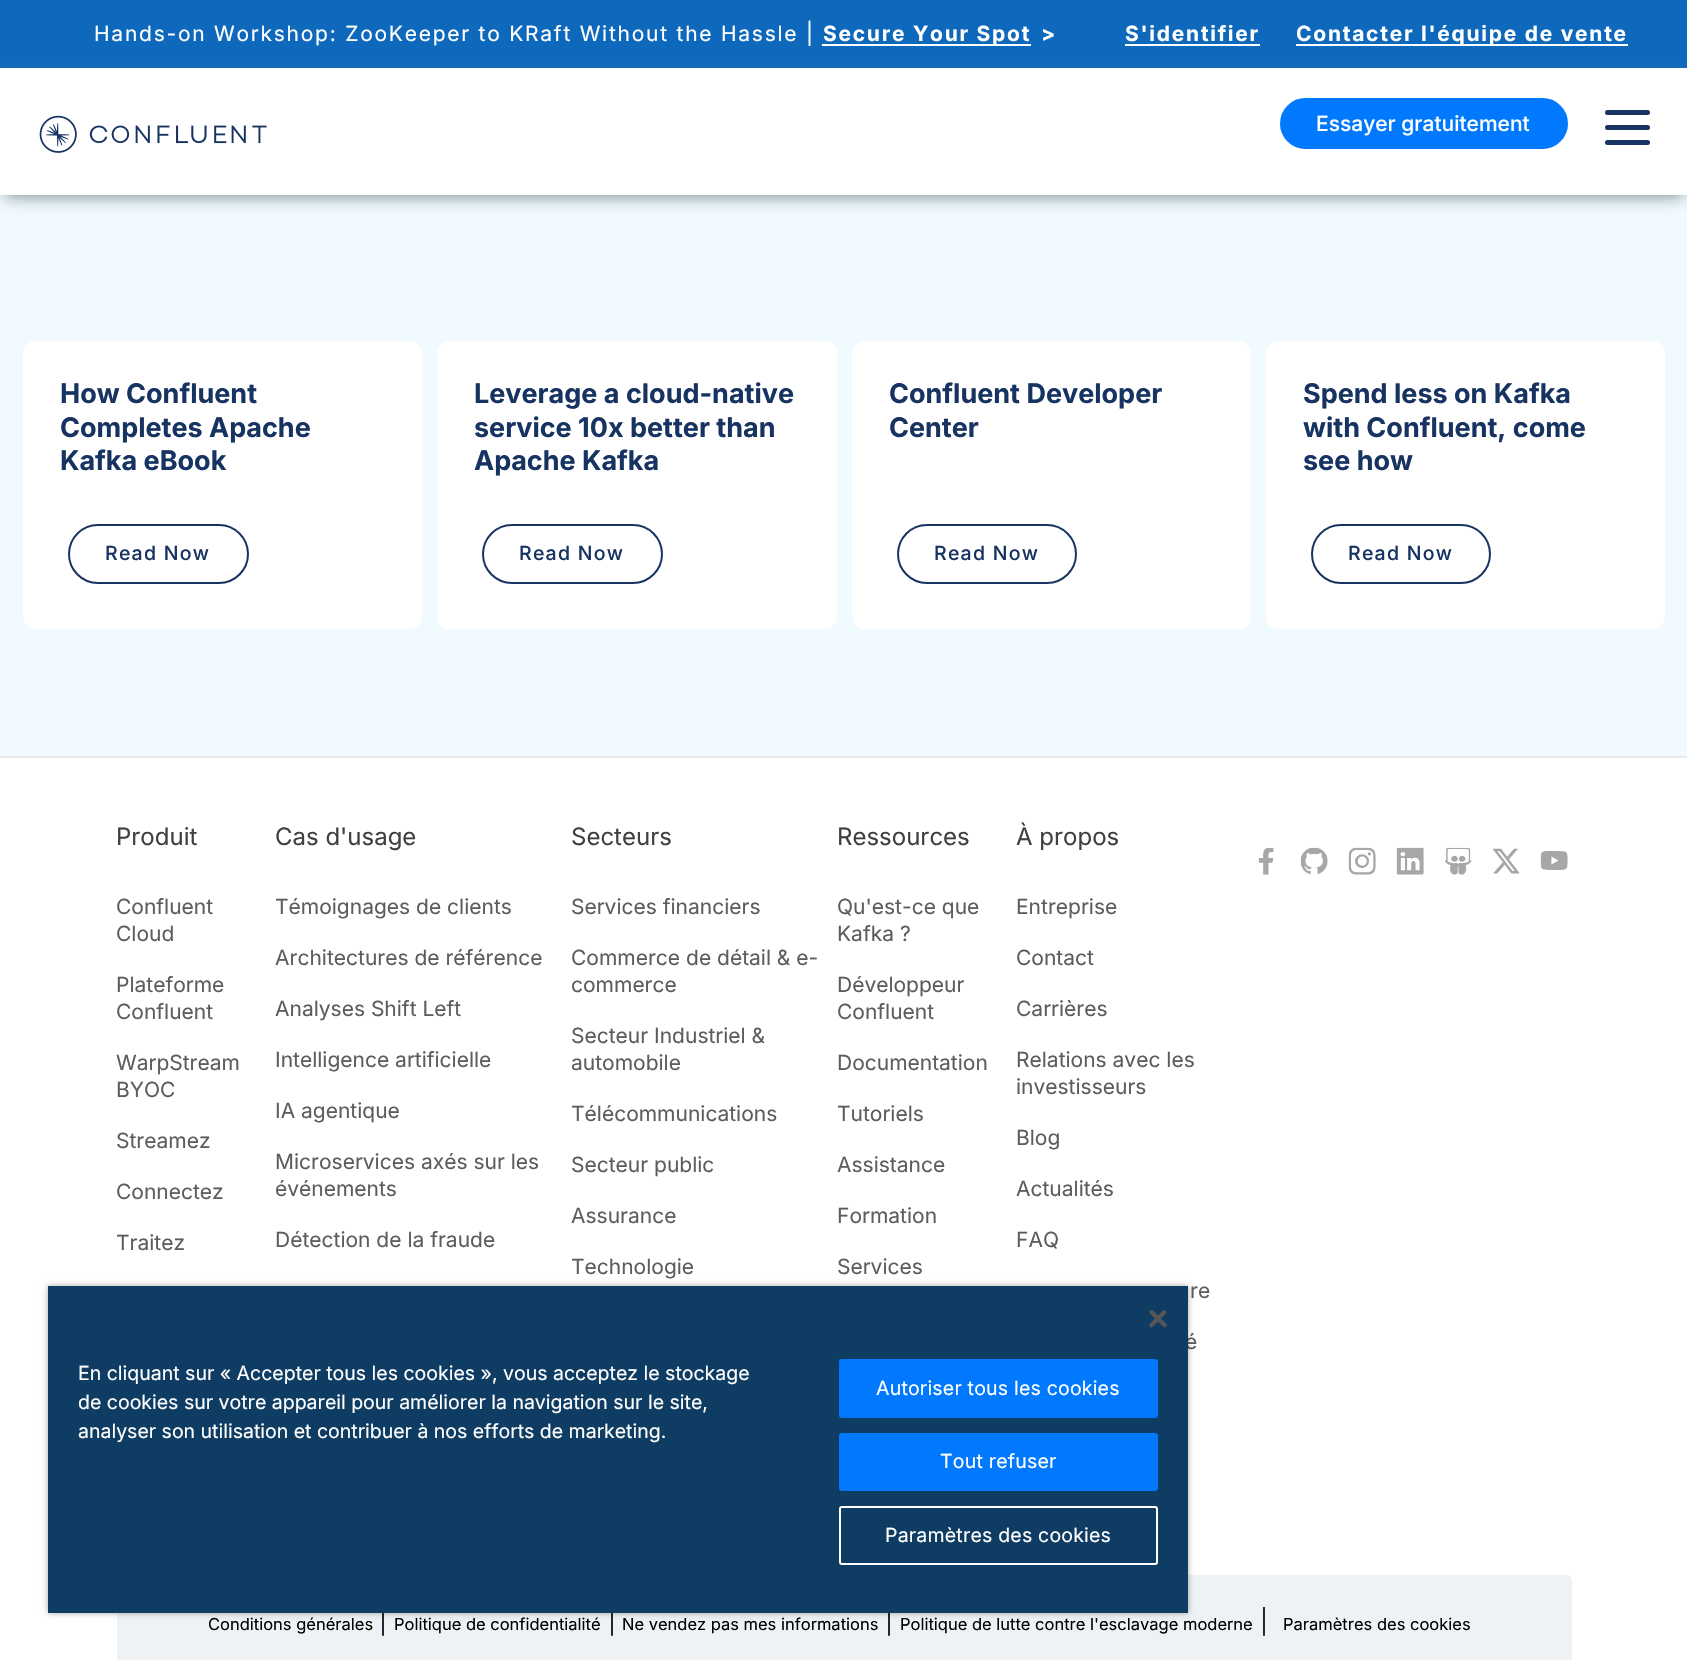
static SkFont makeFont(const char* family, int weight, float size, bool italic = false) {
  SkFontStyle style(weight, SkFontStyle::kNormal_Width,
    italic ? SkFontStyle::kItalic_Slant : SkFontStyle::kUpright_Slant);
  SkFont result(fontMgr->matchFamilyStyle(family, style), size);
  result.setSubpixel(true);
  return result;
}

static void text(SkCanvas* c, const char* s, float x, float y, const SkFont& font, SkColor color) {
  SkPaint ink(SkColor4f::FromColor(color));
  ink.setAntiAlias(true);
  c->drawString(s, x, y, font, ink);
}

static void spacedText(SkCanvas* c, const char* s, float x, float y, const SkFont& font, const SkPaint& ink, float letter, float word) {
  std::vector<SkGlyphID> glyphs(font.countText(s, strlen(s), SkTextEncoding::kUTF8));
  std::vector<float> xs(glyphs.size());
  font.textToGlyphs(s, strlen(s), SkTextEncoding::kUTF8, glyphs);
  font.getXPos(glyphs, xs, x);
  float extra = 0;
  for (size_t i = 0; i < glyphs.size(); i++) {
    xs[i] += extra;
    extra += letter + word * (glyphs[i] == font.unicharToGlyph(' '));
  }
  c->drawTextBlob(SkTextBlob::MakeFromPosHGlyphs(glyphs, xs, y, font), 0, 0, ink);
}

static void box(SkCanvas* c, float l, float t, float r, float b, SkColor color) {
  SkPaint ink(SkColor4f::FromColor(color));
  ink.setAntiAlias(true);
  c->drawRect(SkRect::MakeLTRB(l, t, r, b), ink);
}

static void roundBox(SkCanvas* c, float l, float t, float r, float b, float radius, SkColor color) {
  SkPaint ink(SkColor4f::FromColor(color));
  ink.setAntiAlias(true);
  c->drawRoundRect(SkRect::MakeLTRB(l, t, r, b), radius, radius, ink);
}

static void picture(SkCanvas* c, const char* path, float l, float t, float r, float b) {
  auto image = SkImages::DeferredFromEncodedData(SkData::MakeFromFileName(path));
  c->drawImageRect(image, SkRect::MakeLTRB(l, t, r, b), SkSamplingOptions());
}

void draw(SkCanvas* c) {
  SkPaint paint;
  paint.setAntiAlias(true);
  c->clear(0xffffffff);
  box(c, 0, 0, 1687, 68, 0xff0e68bc);
  SkFont face1 = makeFont("Inter", 400, 21);
  paint.setColor(0xffffffff);
  spacedText(c, "Hands-on Workshop: ZooKeeper to KRaft Without the Hassle |", 94, 41, face1, paint, 1.75f, 0);
  box(c, 822, 44, 1031, 46, 0xffffffff);
  SkFont face2 = makeFont("Inter", 700, 21);
  spacedText(c, "Secure Your Spot", 823, 41, face2, paint, 1.75f, 0);
  spacedText(c, ">", 1041, 41, face2, paint, 1.75f, 0);
  spacedText(c, "S'identifier", 1125, 41, face2, paint, 1.75f, 0);
  box(c, 1125, 44, 1260, 46, 0xffffffff);
  box(c, 1296, 44, 1628, 46, 0xffffffff);
  spacedText(c, "Contacter l'équipe de vente", 1296, 41, face2, paint, 1.75f, 0);
  box(c, 0, 195, 1687, 756, 0xfff1faff);
  paint.setColor(0xff829494);
  paint.setMaskFilter(SkMaskFilter::MakeBlur(kNormal_SkBlurStyle, 7.5f));
  c->drawRect(SkRect::MakeLTRB(5, 78, 1683, 197), paint);
  paint.setMaskFilter(nullptr);
  box(c, 0, 68, 1687, 195, 0xffffffff);
  picture(c, "img_01.png", 39, 115, 267, 153);
  paint.setColor(0xff0079ff);
  c->drawRoundRect(SkRect::MakeLTRB(1281, 99, 1567, 148), 24.5f, 24.5f, paint);
  paint.setStyle(SkPaint::kStroke_Style);
  paint.setStrokeWidth(2);
  c->drawRoundRect(SkRect::MakeLTRB(1281, 99, 1567, 148), 24.5f, 24.5f, paint);
  SkFont face3 = makeFont("Inter", 500, 21);
  text(c, "Essayer gratuitement", 1316, 131, face3, 0xffffffff);
  roundBox(c, 1605, 110, 1650, 115, 2.5f, 0xff173361);
  roundBox(c, 1605, 125, 1650, 130, 2.5f, 0xff173361);
  roundBox(c, 1605, 140, 1650, 145, 2.5f, 0xff173361);
  roundBox(c, 23, 341, 422, 629, 12, 0xffffffff);
  SkFont face4 = makeFont("Inter", 700, 27);
  text(c, "How Confluent", 60, 403, face4, 0xff173361);
  text(c, "Completes Apache", 60, 437, face4, 0xff173361);
  text(c, "Kafka eBook", 60, 470, face4, 0xff173361);
  paint.setColor(0xff173361);
  c->drawRoundRect(SkRect::MakeLTRB(69, 525, 248, 583), 29, 29, paint);
  SkFont face5 = makeFont("Inter", 500, 19.5f);
  paint.setStyle(SkPaint::kFill_Style);
  spacedText(c, "Read Now", 105, 560, face5, paint, 1.25f, 0);
  roundBox(c, 437, 341, 837, 629, 12, 0xffffffff);
  text(c, "Leverage a cloud-native", 474, 403, face4, 0xff173361);
  text(c, "service 10x better than", 474, 437, face4, 0xff173361);
  text(c, "Apache Kafka", 474, 470, face4, 0xff173361);
  paint.setStyle(SkPaint::kStroke_Style);
  c->drawRoundRect(SkRect::MakeLTRB(483, 525, 662, 583), 29, 29, paint);
  paint.setStyle(SkPaint::kFill_Style);
  spacedText(c, "Read Now", 519, 560, face5, paint, 1.25f, 0);
  roundBox(c, 852, 341, 1251, 629, 12, 0xffffffff);
  text(c, "Confluent Developer", 889, 403, face4, 0xff173361);
  text(c, "Center", 889, 437, face4, 0xff173361);
  paint.setStyle(SkPaint::kStroke_Style);
  c->drawRoundRect(SkRect::MakeLTRB(898, 525, 1076, 583), 29, 29, paint);
  paint.setStyle(SkPaint::kFill_Style);
  spacedText(c, "Read Now", 934, 560, face5, paint, 1.25f, 0);
  roundBox(c, 1266, 341, 1665, 629, 12, 0xffffffff);
  text(c, "Spend less on Kafka", 1303, 403, face4, 0xff173361);
  text(c, "with Confluent, come", 1303, 437, face4, 0xff173361);
  text(c, "see how", 1303, 470, face4, 0xff173361);
  paint.setStyle(SkPaint::kStroke_Style);
  c->drawRoundRect(SkRect::MakeLTRB(1312, 525, 1490, 583), 29, 29, paint);
  paint.setStyle(SkPaint::kFill_Style);
  spacedText(c, "Read Now", 1348, 560, face5, paint, 1.25f, 0);
  box(c, 0, 756, 1687, 758, 0xffe9e9ed);
  SkFont face6 = makeFont("Inter", 400, 24);
  text(c, "Produit", 116, 845, face6, 0xff404040);
  text(c, "Confluent", 116, 914, face1, 0xff5d5d5d);
  text(c, "Cloud", 116, 941, face1, 0xff5d5d5d);
  text(c, "Plateforme", 116, 992, face1, 0xff5d5d5d);
  text(c, "Confluent", 116, 1019, face1, 0xff5d5d5d);
  text(c, "WarpStream", 116, 1070, face1, 0xff5d5d5d);
  text(c, "BYOC", 116, 1097, face1, 0xff5d5d5d);
  text(c, "Streamez", 116, 1148, face1, 0xff5d5d5d);
  text(c, "Connectez", 116, 1199, face1, 0xff5d5d5d);
  text(c, "Traitez", 116, 1250, face1, 0xff5d5d5d);
  text(c, "Cas d'usage", 275, 845, face6, 0xff404040);
  text(c, "Témoignages de clients", 275, 914, face1, 0xff5d5d5d);
  text(c, "Architectures de référence", 275, 965, face1, 0xff5d5d5d);
  text(c, "Analyses Shift Left", 275, 1016, face1, 0xff5d5d5d);
  text(c, "Intelligence artificielle", 275, 1067, face1, 0xff5d5d5d);
  text(c, "IA agentique", 275, 1118, face1, 0xff5d5d5d);
  text(c, "Microservices axés sur les", 275, 1169, face1, 0xff5d5d5d);
  text(c, "événements", 275, 1196, face1, 0xff5d5d5d);
  text(c, "Détection de la fraude", 275, 1247, face1, 0xff5d5d5d);
  text(c, "Secteurs", 571, 845, face6, 0xff404040);
  text(c, "Services financiers", 571, 914, face1, 0xff5d5d5d);
  text(c, "Commerce de détail & e-", 571, 965, face1, 0xff5d5d5d);
  text(c, "commerce", 571, 992, face1, 0xff5d5d5d);
  text(c, "Secteur Industriel &", 571, 1043, face1, 0xff5d5d5d);
  text(c, "automobile", 571, 1070, face1, 0xff5d5d5d);
  text(c, "Télécommunications", 571, 1121, face1, 0xff5d5d5d);
  text(c, "Secteur public", 571, 1172, face1, 0xff5d5d5d);
  text(c, "Assurance", 571, 1223, face1, 0xff5d5d5d);
  text(c, "Technologie", 571, 1274, face1, 0xff5d5d5d);
  text(c, "Ressources", 837, 845, face6, 0xff404040);
  text(c, "Qu'est-ce que", 837, 914, face1, 0xff5d5d5d);
  text(c, "Kafka ?", 837, 941, face1, 0xff5d5d5d);
  text(c, "Développeur", 837, 992, face1, 0xff5d5d5d);
  text(c, "Confluent", 837, 1019, face1, 0xff5d5d5d);
  text(c, "Documentation", 837, 1070, face1, 0xff5d5d5d);
  text(c, "Tutoriels", 837, 1121, face1, 0xff5d5d5d);
  text(c, "Assistance", 837, 1172, face1, 0xff5d5d5d);
  text(c, "Formation", 837, 1223, face1, 0xff5d5d5d);
  text(c, "Services", 837, 1274, face1, 0xff5d5d5d);
  text(c, "À propos", 1016, 845, face6, 0xff404040);
  text(c, "Entreprise", 1016, 914, face1, 0xff5d5d5d);
  text(c, "Contact", 1016, 965, face1, 0xff5d5d5d);
  text(c, "Carrières", 1016, 1016, face1, 0xff5d5d5d);
  text(c, "Relations avec les", 1016, 1067, face1, 0xff5d5d5d);
  text(c, "investisseurs", 1016, 1094, face1, 0xff5d5d5d);
  text(c, "Blog", 1016, 1145, face1, 0xff5d5d5d);
  text(c, "Actualités", 1016, 1196, face1, 0xff5d5d5d);
  text(c, "FAQ", 1016, 1247, face1, 0xff5d5d5d);
  text(c, "re", 1190, 1298, face1, 0xff5d5d5d);
  text(c, "é", 1185, 1349, face1, 0xff5d5d5d);
  picture(c, "img_02.png", 1258, 847, 1274, 875);
  picture(c, "img_03.png", 1300, 847, 1328, 874);
  picture(c, "img_04.png", 1348, 847, 1376, 875);
  picture(c, "img_05.png", 1396, 847, 1424, 875);
  picture(c, "img_06.png", 1445, 847, 1472, 875);
  picture(c, "img_07.png", 1493, 848, 1520, 874);
  picture(c, "img_08.png", 1540, 851, 1568, 870);
  roundBox(c, 117, 1575, 1572, 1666, 6, 0xffeff2f4);
  SkFont face7 = makeFont("Inter", 400, 16.5f);
  text(c, "Conditions générales", 208, 1630, face7, 0xff000000);
  text(c, "|", 379, 1630, face6, 0xff15202b);
  text(c, "Politique de confidentialité", 394, 1630, face7, 0xff000000);
  text(c, "|", 608, 1630, face6, 0xff15202b);
  text(c, "Ne vendez pas mes informations", 622, 1630, face7, 0xff000000);
  text(c, "|", 885, 1630, face6, 0xff15202b);
  text(c, "Politique de lutte contre l'esclavage moderne", 900, 1630, face7, 0xff000000);
  text(c, "|", 1260, 1630, face6, 0xff15202b);
  text(c, "Paramètres des cookies", 1283, 1630, face7, 0xff000000);
  paint.setColor(0x59000000);
  paint.setMaskFilter(SkMaskFilter::MakeBlur(kNormal_SkBlurStyle, 3));
  c->drawRect(SkRect::MakeLTRB(48, 1286, 1188, 1613), paint);
  paint.setMaskFilter(nullptr);
  box(c, 48, 1286, 1188, 1613, 0xff0e3c62);
  picture(c, "img_09.png", 1149, 1310, 1167, 1328);
  SkFont face8 = makeFont("Inter", 400, 19.5f);
  text(c, "En cliquant sur « Accepter tous les cookies », vous acceptez le stockage", 78, 1380, face8, 0xffffffff);
  text(c, "de cookies sur votre appareil pour améliorer la navigation sur le site,", 78, 1409, face8, 0xffffffff);
  text(c, "analyser son utilisation et contribuer à nos efforts de marketing.", 78, 1438, face8, 0xffffffff);
  paint.setColor(0xff0079ff);
  c->drawRoundRect(SkRect::MakeLTRB(840, 1360, 1157, 1417), 2, 2, paint);
  paint.setStyle(SkPaint::kStroke_Style);
  c->drawRoundRect(SkRect::MakeLTRB(840, 1360, 1157, 1417), 2, 2, paint);
  paint.setStyle(SkPaint::kFill_Style);
  paint.setColor(0xffffffff);
  spacedText(c, "Autoriser tous les cookies", 876, 1395, face8, paint, 0.2f, 0);
  paint.setColor(0xff0079ff);
  c->drawRoundRect(SkRect::MakeLTRB(840, 1434, 1157, 1490), 2, 2, paint);
  paint.setStyle(SkPaint::kStroke_Style);
  c->drawRoundRect(SkRect::MakeLTRB(840, 1434, 1157, 1490), 2, 2, paint);
  paint.setStyle(SkPaint::kFill_Style);
  paint.setColor(0xffffffff);
  spacedText(c, "Tout refuser", 940, 1468, face8, paint, 0.2f, 0);
  paint.setStyle(SkPaint::kStroke_Style);
  c->drawRoundRect(SkRect::MakeLTRB(840, 1507, 1157, 1564), 2, 2, paint);
  paint.setStyle(SkPaint::kFill_Style);
  spacedText(c, "Paramètres des cookies", 885, 1542, face8, paint, 0.2f, 0);
}
